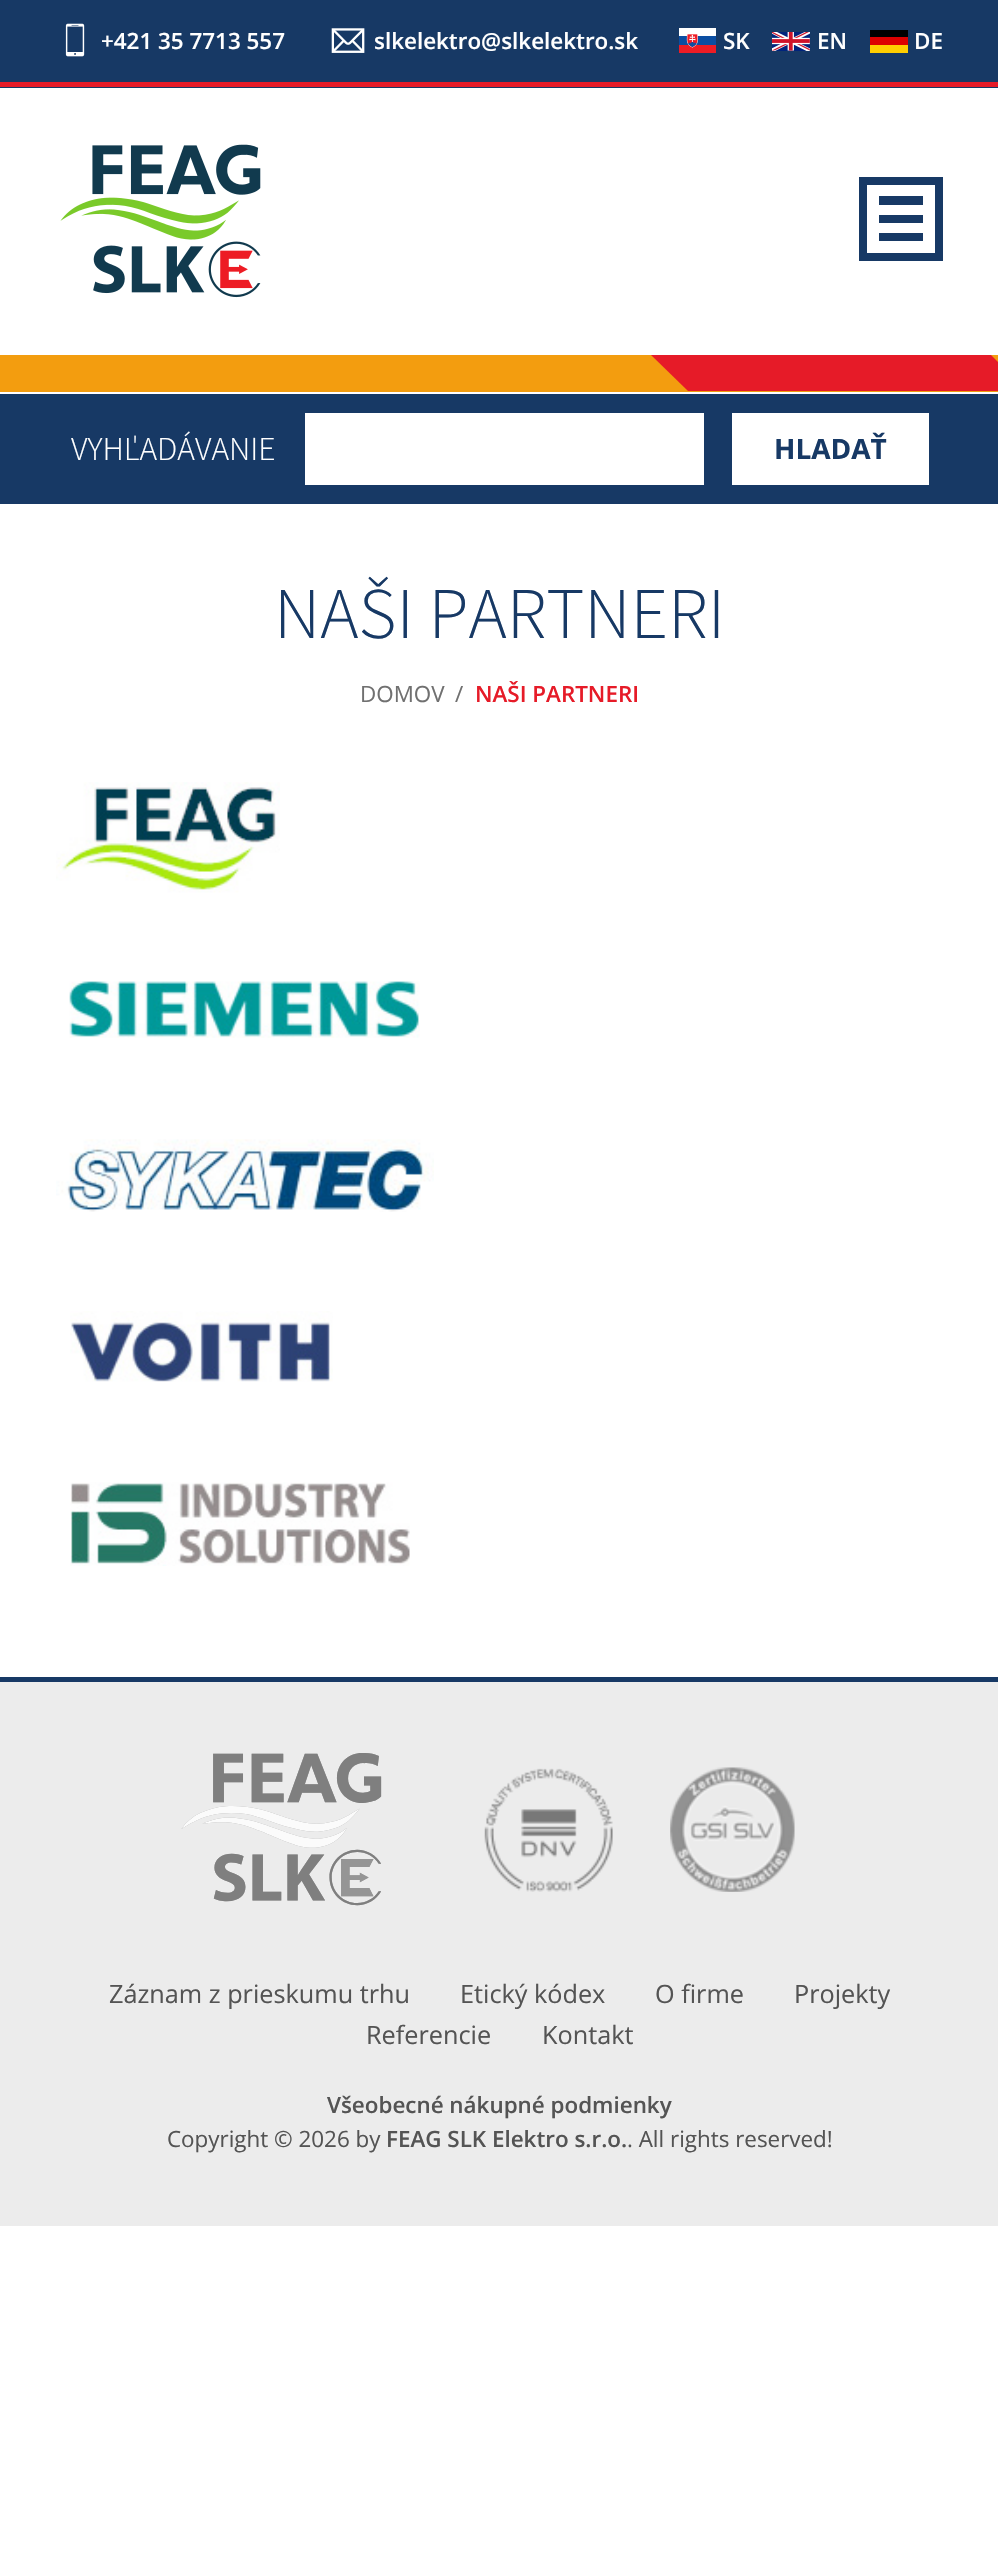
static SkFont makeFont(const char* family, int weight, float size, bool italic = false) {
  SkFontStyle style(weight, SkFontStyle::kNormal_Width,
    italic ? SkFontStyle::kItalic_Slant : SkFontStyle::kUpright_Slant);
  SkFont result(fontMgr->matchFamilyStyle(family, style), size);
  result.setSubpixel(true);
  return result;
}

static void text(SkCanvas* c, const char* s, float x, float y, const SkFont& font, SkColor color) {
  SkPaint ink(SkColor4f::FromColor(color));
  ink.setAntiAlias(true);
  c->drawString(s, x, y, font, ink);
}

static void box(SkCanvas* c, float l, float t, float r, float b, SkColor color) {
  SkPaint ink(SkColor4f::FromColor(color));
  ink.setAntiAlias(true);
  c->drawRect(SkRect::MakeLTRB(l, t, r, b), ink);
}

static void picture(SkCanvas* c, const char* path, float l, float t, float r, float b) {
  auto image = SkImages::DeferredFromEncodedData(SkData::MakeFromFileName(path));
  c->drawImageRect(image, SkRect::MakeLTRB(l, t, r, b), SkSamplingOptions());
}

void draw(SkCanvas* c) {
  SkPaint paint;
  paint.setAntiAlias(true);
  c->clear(0xffffffff);
  box(c, 0, 0, 998, 88, 0xff173965);
  box(c, 0, 82, 998, 87, 0xffe61b28);
  picture(c, "img_01.png", 65, 23, 85, 57);
  SkFont face1 = makeFont("Open Sans", 600, 22.4f);
  text(c, "+421 35 7713 557", 101, 49, face1, 0xffffffff);
  picture(c, "img_02.png", 331, 28, 365, 53);
  text(c, "slkelektro@slkelektro.sk", 374, 49, face1, 0xffffffff);
  picture(c, "img_03.png", 679, 28, 716, 53);
  text(c, "SK", 723, 49, face1, 0xffffffff);
  picture(c, "img_04.png", 772, 32, 810, 51);
  text(c, "EN", 817, 49, face1, 0xffffffff);
  box(c, 870, 30, 908, 37, 0xff000000);
  box(c, 870, 37, 908, 45, 0xffdd0000);
  box(c, 870, 45, 908, 53, 0xffffce00);
  text(c, "DE", 914, 49, face1, 0xffffffff);
  picture(c, "img_05.png", 60, 144, 261, 298);
  paint.setStyle(SkPaint::kStroke_Style);
  paint.setStrokeWidth(8);
  paint.setColor(0xff173965);
  c->drawRect(SkRect::MakeLTRB(863, 181, 939, 257), paint);
  box(c, 879, 196, 923, 205, 0xff173965);
  box(c, 879, 215, 923, 223, 0xff173965);
  box(c, 879, 233, 923, 241, 0xff173965);
  box(c, 0, 355, 998, 392, 0xfff39d0f);
  paint.setStyle(SkPaint::kFill_Style);
  paint.setColor(0xffe61b28);
  c->drawPath(SkPathBuilder().moveTo(651, 355).lineTo(991, 355).lineTo(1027, 391).lineTo(688, 391).close().detach(), paint);
  box(c, 0, 394, 998, 504, 0xff173965);
  SkFont face2 = makeFont("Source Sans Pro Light", 300, 33.5f);
  text(c, "VYHĽADÁVANIE", 71, 460, face2, 0xffffffff);
  box(c, 305, 413, 704, 485, 0xffffffff);
  box(c, 732, 413, 929, 485, 0xffffffff);
  SkFont face3 = makeFont("Open Sans", 700, 28);
  text(c, "HLADAŤ", 774, 459, face3, 0xff173965);
  SkFont face4 = makeFont("Source Sans Pro Light", 300, 72.75f);
  text(c, "NAŠI PARTNERI", 274, 638, face4, 0xff173965);
  SkFont face5 = makeFont("Open Sans", 400, 22.4f);
  text(c, "DOMOV", 360, 702, face5, 0xff707070);
  text(c, "/", 455, 702, face5, 0xff707070);
  text(c, "NAŠI PARTNERI", 475, 702, face1, 0xffe61b28);
  picture(c, "img_06.png", 56, 782, 280, 893);
  picture(c, "img_07.png", 69, 981, 420, 1038);
  picture(c, "img_08.png", 56, 1139, 434, 1212);
  picture(c, "img_09.png", 70, 1311, 333, 1382);
  picture(c, "img_10.png", 70, 1482, 410, 1566);
  box(c, 0, 1682, 998, 2226, 0xffececec);
  box(c, 0, 1677, 998, 1682, 0xff173965);
  picture(c, "img_11.png", 181, 1753, 382, 1906);
  picture(c, "img_12.png", 484, 1768, 613, 1892);
  picture(c, "img_13.png", 670, 1767, 795, 1892);
  SkFont face6 = makeFont("Open Sans", 400, 25.25f);
  text(c, "Záznam z prieskumu trhu", 109, 2003, face6, 0xff545454);
  text(c, "Etický kódex", 460, 2003, face6, 0xff545454);
  text(c, "O firme", 655, 2003, face6, 0xff545454);
  text(c, "Projekty", 794, 2003, face6, 0xff545454);
  text(c, "Referencie", 366, 2044, face6, 0xff545454);
  text(c, "Kontakt", 542, 2044, face6, 0xff545454);
  text(c, "Všeobecné nákupné podmienky", 327, 2113, face1, 0xff545454);
  text(c, "Copyright © 2026 by", 167, 2147, face5, 0xff545454);
  text(c, "FEAG SLK Elektro s.r.o.", 386, 2147, face1, 0xff545454);
  text(c, ". All rights reserved!", 627, 2147, face5, 0xff545454);
}
